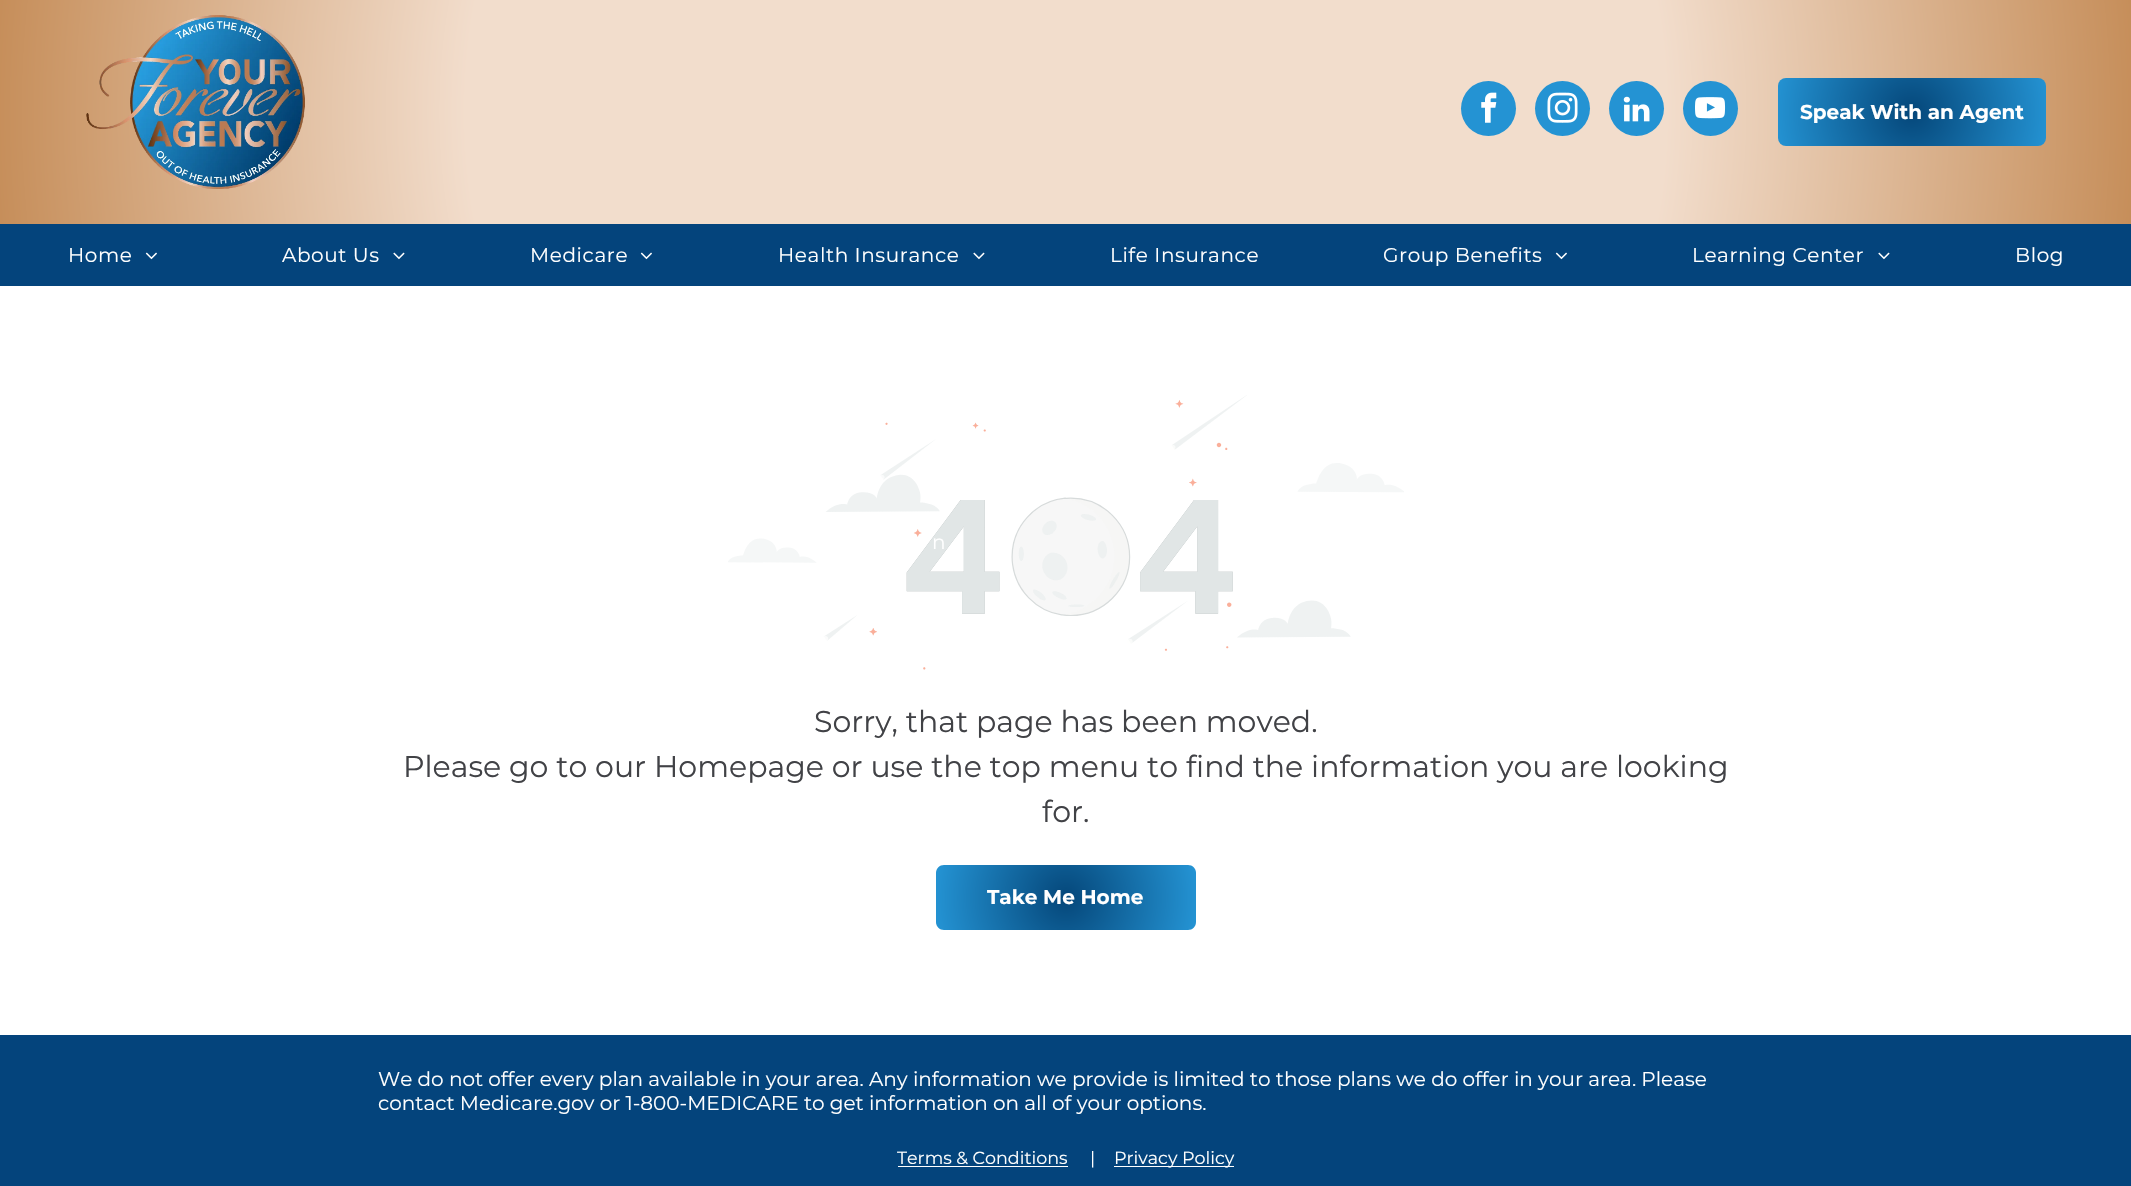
static SkFont makeFont(const char* family, int weight, float size, bool italic = false) {
  SkFontStyle style(weight, SkFontStyle::kNormal_Width,
    italic ? SkFontStyle::kItalic_Slant : SkFontStyle::kUpright_Slant);
  SkFont result(fontMgr->matchFamilyStyle(family, style), size);
  result.setSubpixel(true);
  return result;
}

static void text(SkCanvas* c, const char* s, float x, float y, const SkFont& font, SkColor color) {
  SkPaint ink(SkColor4f::FromColor(color));
  ink.setAntiAlias(true);
  c->drawString(s, x, y, font, ink);
}

static void spacedText(SkCanvas* c, const char* s, float x, float y, const SkFont& font, const SkPaint& ink, float letter, float word) {
  std::vector<SkGlyphID> glyphs(font.countText(s, strlen(s), SkTextEncoding::kUTF8));
  std::vector<float> xs(glyphs.size());
  font.textToGlyphs(s, strlen(s), SkTextEncoding::kUTF8, glyphs);
  font.getXPos(glyphs, xs, x);
  float extra = 0;
  for (size_t i = 0; i < glyphs.size(); i++) {
    xs[i] += extra;
    extra += letter + word * (glyphs[i] == font.unicharToGlyph(' '));
  }
  c->drawTextBlob(SkTextBlob::MakeFromPosHGlyphs(glyphs, xs, y, font), 0, 0, ink);
}

static void box(SkCanvas* c, float l, float t, float r, float b, SkColor color) {
  SkPaint ink(SkColor4f::FromColor(color));
  ink.setAntiAlias(true);
  c->drawRect(SkRect::MakeLTRB(l, t, r, b), ink);
}

static void picture(SkCanvas* c, const char* path, float l, float t, float r, float b) {
  auto image = SkImages::DeferredFromEncodedData(SkData::MakeFromFileName(path));
  c->drawImageRect(image, SkRect::MakeLTRB(l, t, r, b), SkSamplingOptions());
}

void draw(SkCanvas* c) {
  SkPaint paint;
  paint.setAntiAlias(true);
  c->clear(0xffffffff);
  {
    const SkColor colors[] = {0xfff2ddcc, 0xffc68e5a};
    const float stops[] = {0.56f, 1};
    paint.setShader(SkGradientShader::MakeRadial({1066, 112}, 1071, colors, stops, 2, SkTileMode::kClamp));
    paint.setAlpha(255);
  }
  c->drawRect(SkRect::MakeLTRB(0, 0, 2131, 224), paint);
  picture(c, "img_01.png", 86, 15, 305, 189);
  paint.setShader(nullptr);
  paint.setColor(0xff2493d3);
  c->drawCircle(1488.5f, 108.5f, 27.5f, paint);
  picture(c, "img_02.png", 1481, 92, 1497, 123);
  c->drawCircle(1562.5f, 108.5f, 27.5f, paint);
  picture(c, "img_03.png", 1547, 92, 1578, 123);
  c->drawCircle(1636.5f, 108.5f, 27.5f, paint);
  picture(c, "img_04.png", 1623, 96, 1650, 122);
  c->drawCircle(1710.5f, 108.5f, 27.5f, paint);
  picture(c, "img_05.png", 1695, 97, 1726, 119);
  {
    const SkColor colors[] = {0xff05477a, 0xff2493d3};
    const float stops[] = {0, 1};
    paint.setShader(SkGradientShader::MakeRadial({1912, 112}, 139, colors, stops, 2, SkTileMode::kClamp));
    paint.setAlpha(255);
  }
  c->drawRoundRect(SkRect::MakeLTRB(1778, 78, 2046, 146), 8, 8, paint);
  SkFont face1 = makeFont("Montserrat", 700, 20);
  text(c, "Speak With an Agent", 1800, 119, face1, 0xffffffff);
  box(c, 0, 224, 2131, 286, 0xff04447c);
  SkFont face2 = makeFont("Montserrat", 400, 20);
  paint.setShader(nullptr);
  paint.setColor(0xffffffff);
  spacedText(c, "Home", 68, 262, face2, paint, 0.6f, 0);
  picture(c, "img_06.png", 145, 252, 157, 260);
  spacedText(c, "About Us", 282, 262, face2, paint, 0.6f, 0);
  picture(c, "img_07.png", 393, 252, 405, 260);
  spacedText(c, "Medicare", 530, 262, face2, paint, 0.6f, 0);
  picture(c, "img_06.png", 640, 252, 652, 260);
  spacedText(c, "Health Insurance", 778, 262, face2, paint, 0.6f, 0);
  picture(c, "img_07.png", 973, 252, 985, 260);
  picture(c, "img_08.png", 728, 395, 1404, 670);
  spacedText(c, "n", 932, 549, face2, paint, 0.6f, 0);
  spacedText(c, "Life Insurance", 1110, 262, face2, paint, 0.6f, 0);
  spacedText(c, "Group Benefits", 1383, 262, face2, paint, 0.6f, 0);
  picture(c, "img_06.png", 1555, 252, 1567, 260);
  spacedText(c, "Learning Center", 1692, 262, face2, paint, 0.6f, 0);
  picture(c, "img_07.png", 1878, 252, 1890, 260);
  spacedText(c, "Blog", 2015, 262, face2, paint, 0.6f, 0);
  SkFont face3 = makeFont("Montserrat", 400, 30);
  text(c, "Sorry, that page has been moved.", 814, 732, face3, 0xff414246);
  text(c, "Please go to our Homepage or use the top menu to find the information you are looking", 403, 777, face3, 0xff414246);
  text(c, "for.", 1042, 822, face3, 0xff414246);
  c->save();
  c->clipPath(SkPathBuilder().moveTo(944, 865).lineTo(1188, 865).cubicTo(1192.5f, 865, 1196, 868.5f, 1196, 873).lineTo(1196, 922).cubicTo(1196, 926.5f, 1192.5f, 930, 1188, 930).lineTo(944, 930).cubicTo(939.5f, 930, 936, 926.5f, 936, 922).lineTo(936, 873).cubicTo(936, 868.5f, 939.5f, 865, 944, 865).close().detach(), true);
  {
    const SkColor colors[] = {0xff05477a, 0xff2493d3};
    const float stops[] = {0, 1};
    paint.setShader(SkGradientShader::MakeRadial({1066, 835}, 132, colors, stops, 2, SkTileMode::kClamp));
    paint.setAlpha(255);
  }
  c->drawRect(SkRect::MakeLTRB(938, 865, 1195, 866), paint);
  {
    const SkColor colors[] = {0xff05477a, 0xff2493d3};
    const float stops[] = {0, 1};
    paint.setShader(SkGradientShader::MakeRadial({809, 898}, 132, colors, stops, 2, SkTileMode::kClamp));
    paint.setAlpha(255);
  }
  c->drawRect(SkRect::MakeLTRB(936, 866, 938, 929), paint);
  {
    const SkColor colors[] = {0xff05477a, 0xff2493d3};
    const float stops[] = {0, 1};
    paint.setShader(SkGradientShader::MakeRadial({1066, 898}, 132, colors, stops, 2, SkTileMode::kClamp));
    paint.setAlpha(255);
  }
  c->drawRect(SkRect::MakeLTRB(938, 866, 1195, 929), paint);
  {
    const SkColor colors[] = {0xff05477a, 0xff2493d3};
    const float stops[] = {0, 1};
    paint.setShader(SkGradientShader::MakeRadial({1324, 898}, 132, colors, stops, 2, SkTileMode::kClamp));
    paint.setAlpha(255);
  }
  c->drawRect(SkRect::MakeLTRB(1195, 866, 1196, 929), paint);
  {
    const SkColor colors[] = {0xff05477a, 0xff2493d3};
    const float stops[] = {0, 1};
    paint.setShader(SkGradientShader::MakeRadial({1066, 960}, 132, colors, stops, 2, SkTileMode::kClamp));
    paint.setAlpha(255);
  }
  c->drawRect(SkRect::MakeLTRB(938, 929, 1195, 930), paint);
  c->restore();
  text(c, "Take Me Home", 987, 904, face1, 0xffffffff);
  box(c, 0, 1035, 2131, 1186, 0xff04447c);
  text(c, "We do not offer every plan available in your area. Any information we provide is limited to those plans we do offer in your area. Please", 378, 1086, face2, 0xffffffff);
  text(c, "contact Medicare.gov or 1-800-MEDICARE to get information on all of your options.", 378, 1110, face2, 0xffffffff);
  SkFont face4 = makeFont("Montserrat", 400, 17.5f);
  text(c, "Terms & Conditions", 897, 1164, face4, 0xffffffff);
  box(c, 898, 1166, 1068, 1167, 0xffffffff);
  text(c, "|", 1090, 1164, face4, 0xffffffff);
  box(c, 1114, 1166, 1234, 1167, 0xffffffff);
  text(c, "Privacy Policy", 1114, 1164, face4, 0xffffffff);
}
